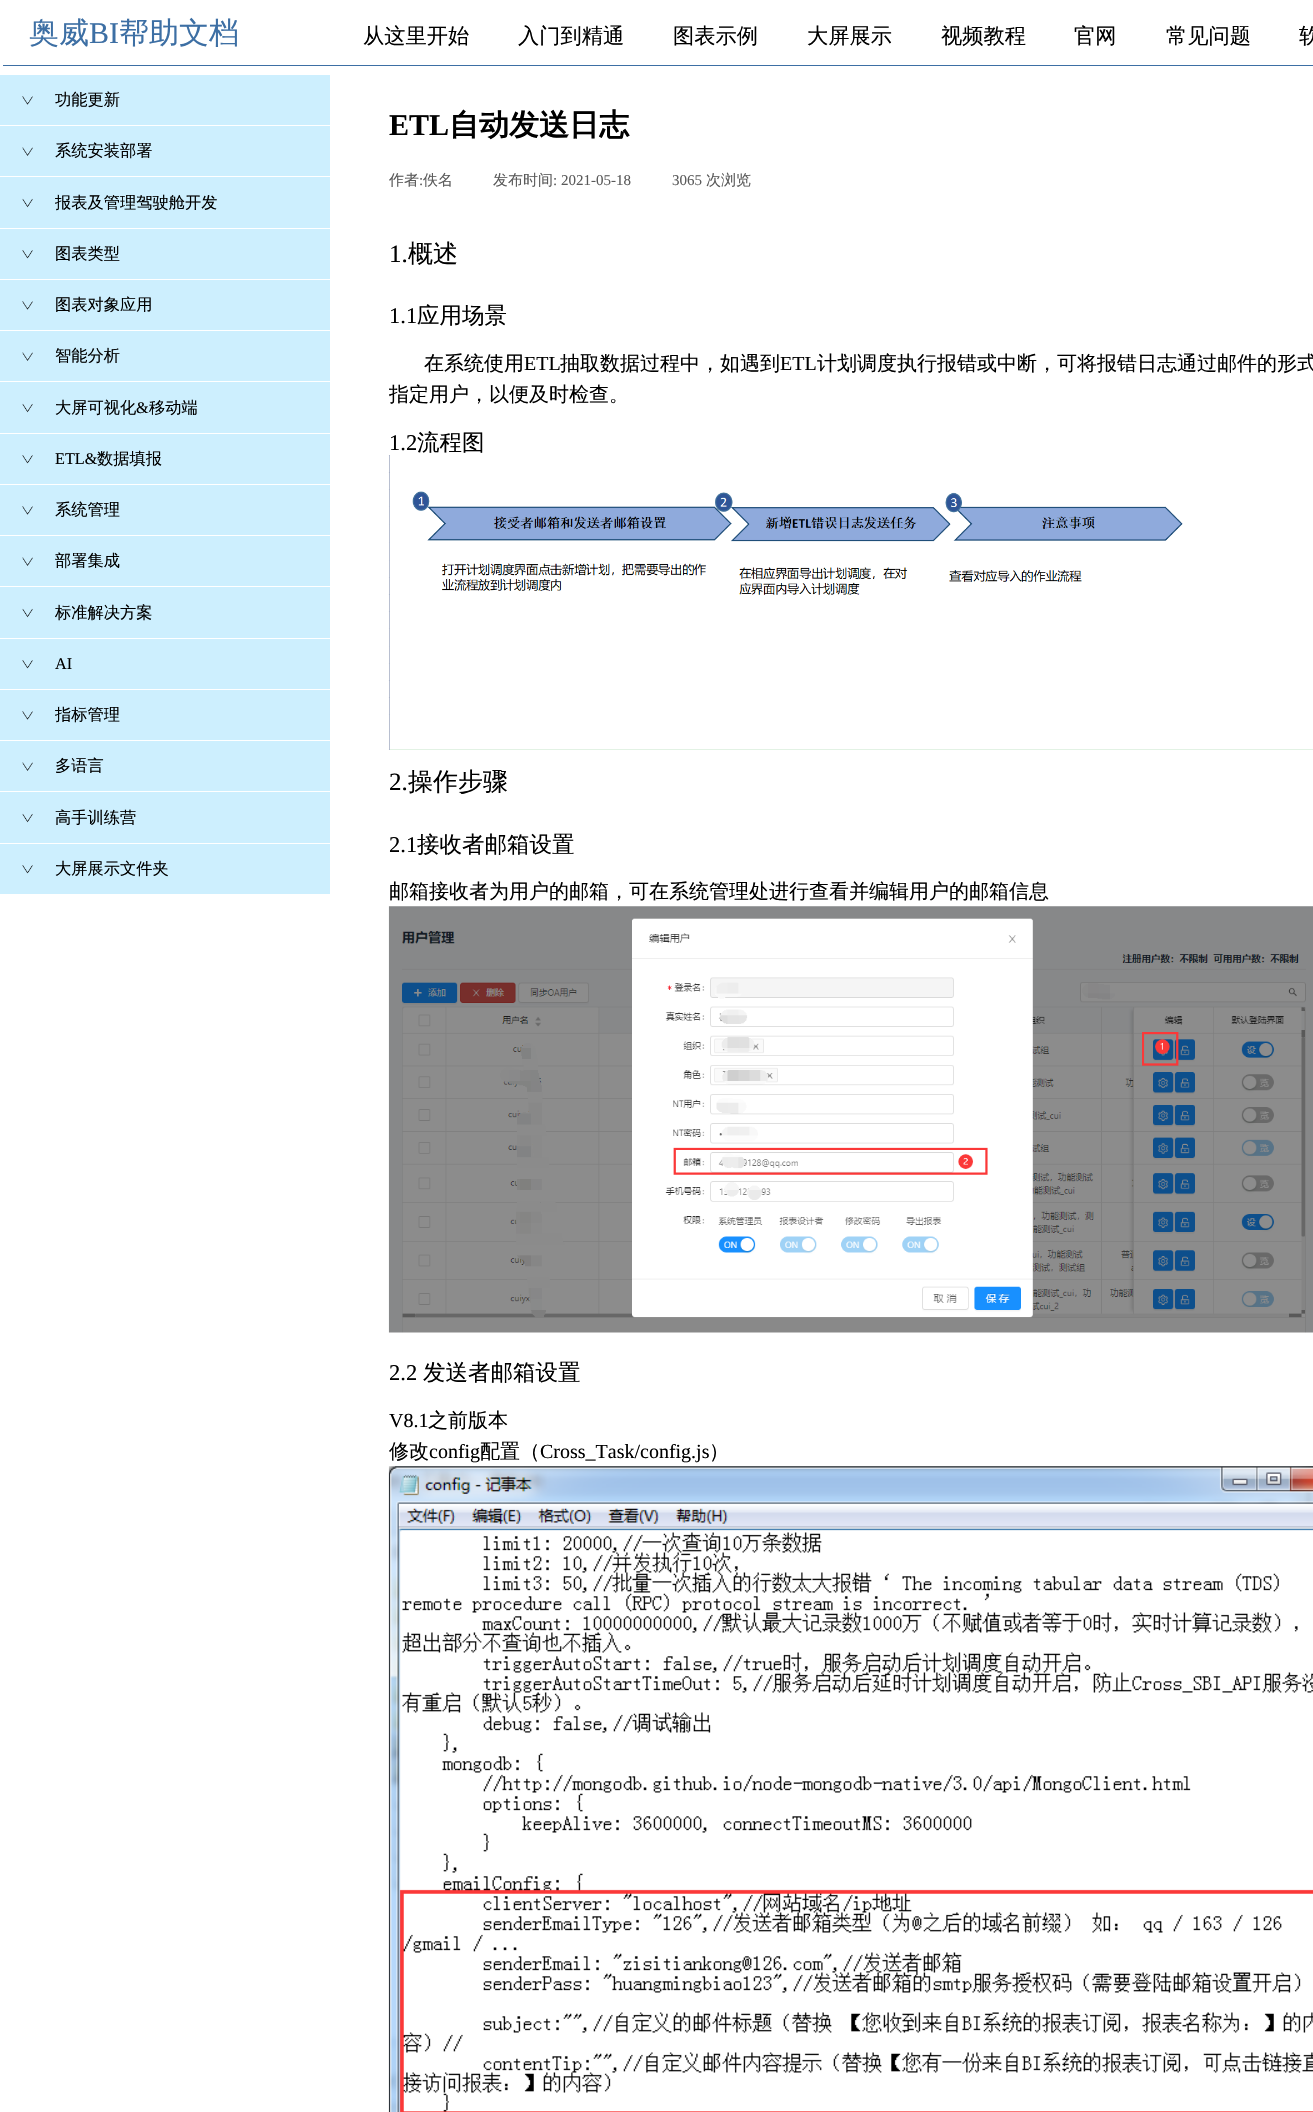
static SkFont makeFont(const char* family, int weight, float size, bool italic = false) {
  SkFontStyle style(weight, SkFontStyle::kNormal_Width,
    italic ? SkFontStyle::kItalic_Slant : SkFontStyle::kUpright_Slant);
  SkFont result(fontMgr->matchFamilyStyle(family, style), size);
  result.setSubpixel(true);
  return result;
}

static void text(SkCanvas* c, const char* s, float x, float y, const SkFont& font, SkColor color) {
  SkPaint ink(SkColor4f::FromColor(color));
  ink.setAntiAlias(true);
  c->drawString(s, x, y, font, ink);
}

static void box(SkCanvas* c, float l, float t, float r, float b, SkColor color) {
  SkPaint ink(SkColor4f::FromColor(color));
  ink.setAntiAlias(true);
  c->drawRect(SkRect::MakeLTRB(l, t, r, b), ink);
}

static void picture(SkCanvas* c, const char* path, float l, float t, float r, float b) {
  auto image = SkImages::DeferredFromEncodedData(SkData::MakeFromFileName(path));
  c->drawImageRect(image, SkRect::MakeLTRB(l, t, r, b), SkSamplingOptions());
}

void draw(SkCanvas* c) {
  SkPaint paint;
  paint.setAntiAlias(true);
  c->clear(0xffffffff);
  box(c, 3, 65, 1313, 66, 0xff3d6fa4);
  SkFont face1 = makeFont("WenQuanYi Zen Hei", 500, 30);
  text(c, "奥威", 29, 43, face1, 0xff3d6fa4);
  SkFont face2 = makeFont("Liberation Serif", 400, 30);
  text(c, "BI", 89, 43, face2, 0xff3d6fa4);
  text(c, "帮助文档", 119, 43, face1, 0xff3d6fa4);
  SkFont face3 = makeFont("WenQuanYi Zen Hei", 500, 21.25f);
  text(c, "从这里开始", 363, 43, face3, 0xff000000);
  text(c, "入门到精通", 518, 43, face3, 0xff000000);
  text(c, "图表示例", 673, 43, face3, 0xff000000);
  text(c, "大屏展示", 807, 43, face3, 0xff000000);
  text(c, "视频教程", 941, 43, face3, 0xff000000);
  text(c, "官网", 1074, 43, face3, 0xff000000);
  text(c, "常见问题", 1166, 43, face3, 0xff000000);
  text(c, "软", 1299, 43, face3, 0xff000000);
  box(c, 0, 75, 330, 894, 0xffcdeffe);
  box(c, 0, 125, 330, 126, 0xffffffff);
  picture(c, "img_01.png", 22, 96, 33, 105);
  SkFont face4 = makeFont("WenQuanYi Zen Hei", 500, 16.25f);
  text(c, "功能更新", 55, 105, face4, 0xff000000);
  box(c, 0, 176, 330, 177, 0xffffffff);
  picture(c, "img_02.png", 22, 147, 33, 156);
  text(c, "系统安装部署", 55, 156, face4, 0xff000000);
  box(c, 0, 228, 330, 229, 0xffffffff);
  picture(c, "img_03.png", 22, 198, 33, 208);
  text(c, "报表及管理驾驶舱开发", 55, 208, face4, 0xff000000);
  box(c, 0, 279, 330, 280, 0xffffffff);
  picture(c, "img_04.png", 22, 250, 33, 259);
  text(c, "图表类型", 55, 259, face4, 0xff000000);
  box(c, 0, 330, 330, 331, 0xffffffff);
  picture(c, "img_05.png", 22, 301, 33, 310);
  text(c, "图表对象应用", 55, 310, face4, 0xff000000);
  box(c, 0, 381, 330, 382, 0xffffffff);
  picture(c, "img_02.png", 22, 352, 33, 361);
  text(c, "智能分析", 55, 361, face4, 0xff000000);
  box(c, 0, 433, 330, 434, 0xffffffff);
  picture(c, "img_03.png", 22, 403, 33, 413);
  text(c, "大屏可视化", 55, 413, face4, 0xff000000);
  SkFont face5 = makeFont("Liberation Serif", 400, 16.25f);
  text(c, "&", 136, 413, face5, 0xff000000);
  text(c, "移动端", 149, 413, face4, 0xff000000);
  box(c, 0, 484, 330, 485, 0xffffffff);
  picture(c, "img_04.png", 22, 455, 33, 464);
  text(c, "ETL&", 55, 464, face5, 0xff000000);
  text(c, "数据填报", 97, 464, face4, 0xff000000);
  box(c, 0, 535, 330, 536, 0xffffffff);
  picture(c, "img_01.png", 22, 506, 33, 515);
  text(c, "系统管理", 55, 515, face4, 0xff000000);
  box(c, 0, 586, 330, 587, 0xffffffff);
  picture(c, "img_02.png", 22, 557, 33, 566);
  text(c, "部署集成", 55, 566, face4, 0xff000000);
  box(c, 0, 638, 330, 639, 0xffffffff);
  picture(c, "img_03.png", 22, 608, 33, 618);
  text(c, "标准解决方案", 55, 618, face4, 0xff000000);
  box(c, 0, 689, 330, 690, 0xffffffff);
  picture(c, "img_04.png", 22, 660, 33, 669);
  text(c, "AI", 55, 669, face5, 0xff000000);
  box(c, 0, 740, 330, 741, 0xffffffff);
  picture(c, "img_01.png", 22, 711, 33, 720);
  text(c, "指标管理", 55, 720, face4, 0xff000000);
  box(c, 0, 791, 330, 792, 0xffffffff);
  picture(c, "img_02.png", 22, 762, 33, 771);
  text(c, "多语言", 55, 771, face4, 0xff000000);
  box(c, 0, 843, 330, 844, 0xffffffff);
  picture(c, "img_03.png", 22, 813, 33, 823);
  text(c, "高手训练营", 55, 823, face4, 0xff000000);
  picture(c, "img_04.png", 22, 865, 33, 874);
  text(c, "大屏展示文件夹", 55, 874, face4, 0xff000000);
  SkFont face6 = makeFont("Liberation Serif", 700, 30);
  text(c, "ETL", 389, 135, face6, 0xff000000);
  SkFont face7 = makeFont("WenQuanYi Zen Hei", 700, 30);
  text(c, "自动发送日志", 449, 135, face7, 0xff000000);
  SkFont face8 = makeFont("WenQuanYi Zen Hei", 500, 15);
  text(c, "作者", 389, 185, face8, 0xff5a5a5a);
  SkFont face9 = makeFont("Liberation Serif", 400, 15);
  text(c, ":", 419, 185, face9, 0xff5a5a5a);
  text(c, "佚名", 423, 185, face8, 0xff5a5a5a);
  text(c, "发布时间", 493, 185, face8, 0xff5a5a5a);
  text(c, ": 2021-05-18", 553, 185, face9, 0xff5a5a5a);
  text(c, "3065", 672, 185, face9, 0xff5a5a5a);
  text(c, "次浏览", 706, 185, face8, 0xff5a5a5a);
  SkFont face10 = makeFont("Liberation Serif", 400, 25);
  text(c, "1.", 389, 262, face10, 0xff000000);
  SkFont face11 = makeFont("WenQuanYi Zen Hei", 500, 25);
  text(c, "概述", 408, 262, face11, 0xff000000);
  SkFont face12 = makeFont("Liberation Serif", 400, 22.5f);
  text(c, "1.1", 389, 323, face12, 0xff000000);
  SkFont face13 = makeFont("WenQuanYi Zen Hei", 500, 22.5f);
  text(c, "应用场景", 417, 323, face13, 0xff000000);
  SkFont face14 = makeFont("WenQuanYi Zen Hei", 500, 20);
  text(c, "在系统使用", 424, 370, face14, 0xff000000);
  SkFont face15 = makeFont("Liberation Serif", 400, 20);
  text(c, "ETL", 524, 370, face15, 0xff000000);
  text(c, "抽取数据过程中，如遇到", 560, 370, face14, 0xff000000);
  text(c, "ETL", 780, 370, face15, 0xff000000);
  text(c, "计划调度执行报错或中断，可将报错日志通过邮件的形式", 817, 370, face14, 0xff000000);
  text(c, "指定用户，以便及时检查。", 389, 401, face14, 0xff000000);
  text(c, "1.2", 389, 450, face12, 0xff000000);
  text(c, "流程图", 417, 450, face13, 0xff000000);
  picture(c, "img_06.png", 388, 455, 1313, 750);
  text(c, "2.", 389, 790, face10, 0xff000000);
  text(c, "操作步骤", 408, 790, face11, 0xff000000);
  text(c, "2.1", 389, 852, face12, 0xff000000);
  text(c, "接收者邮箱设置", 417, 852, face13, 0xff000000);
  text(c, "邮箱接收者为用户的邮箱，可在系统管理处进行查看并编辑用户的邮箱信息", 389, 898, face14, 0xff000000);
  picture(c, "img_07.png", 388, 906, 1313, 1333);
  text(c, "2.2", 389, 1380, face12, 0xff000000);
  text(c, "发送者邮箱设置", 423, 1380, face13, 0xff000000);
  text(c, "V8.1", 389, 1427, face15, 0xff000000);
  text(c, "之前版本", 428, 1427, face14, 0xff000000);
  text(c, "修改", 389, 1458, face14, 0xff000000);
  text(c, "config", 429, 1458, face15, 0xff000000);
  text(c, "配置（", 480, 1458, face14, 0xff000000);
  text(c, "Cross_Task/config.js", 540, 1458, face15, 0xff000000);
  text(c, "）", 709, 1458, face14, 0xff000000);
  picture(c, "img_08.png", 388, 1466, 1313, 2112);
}
